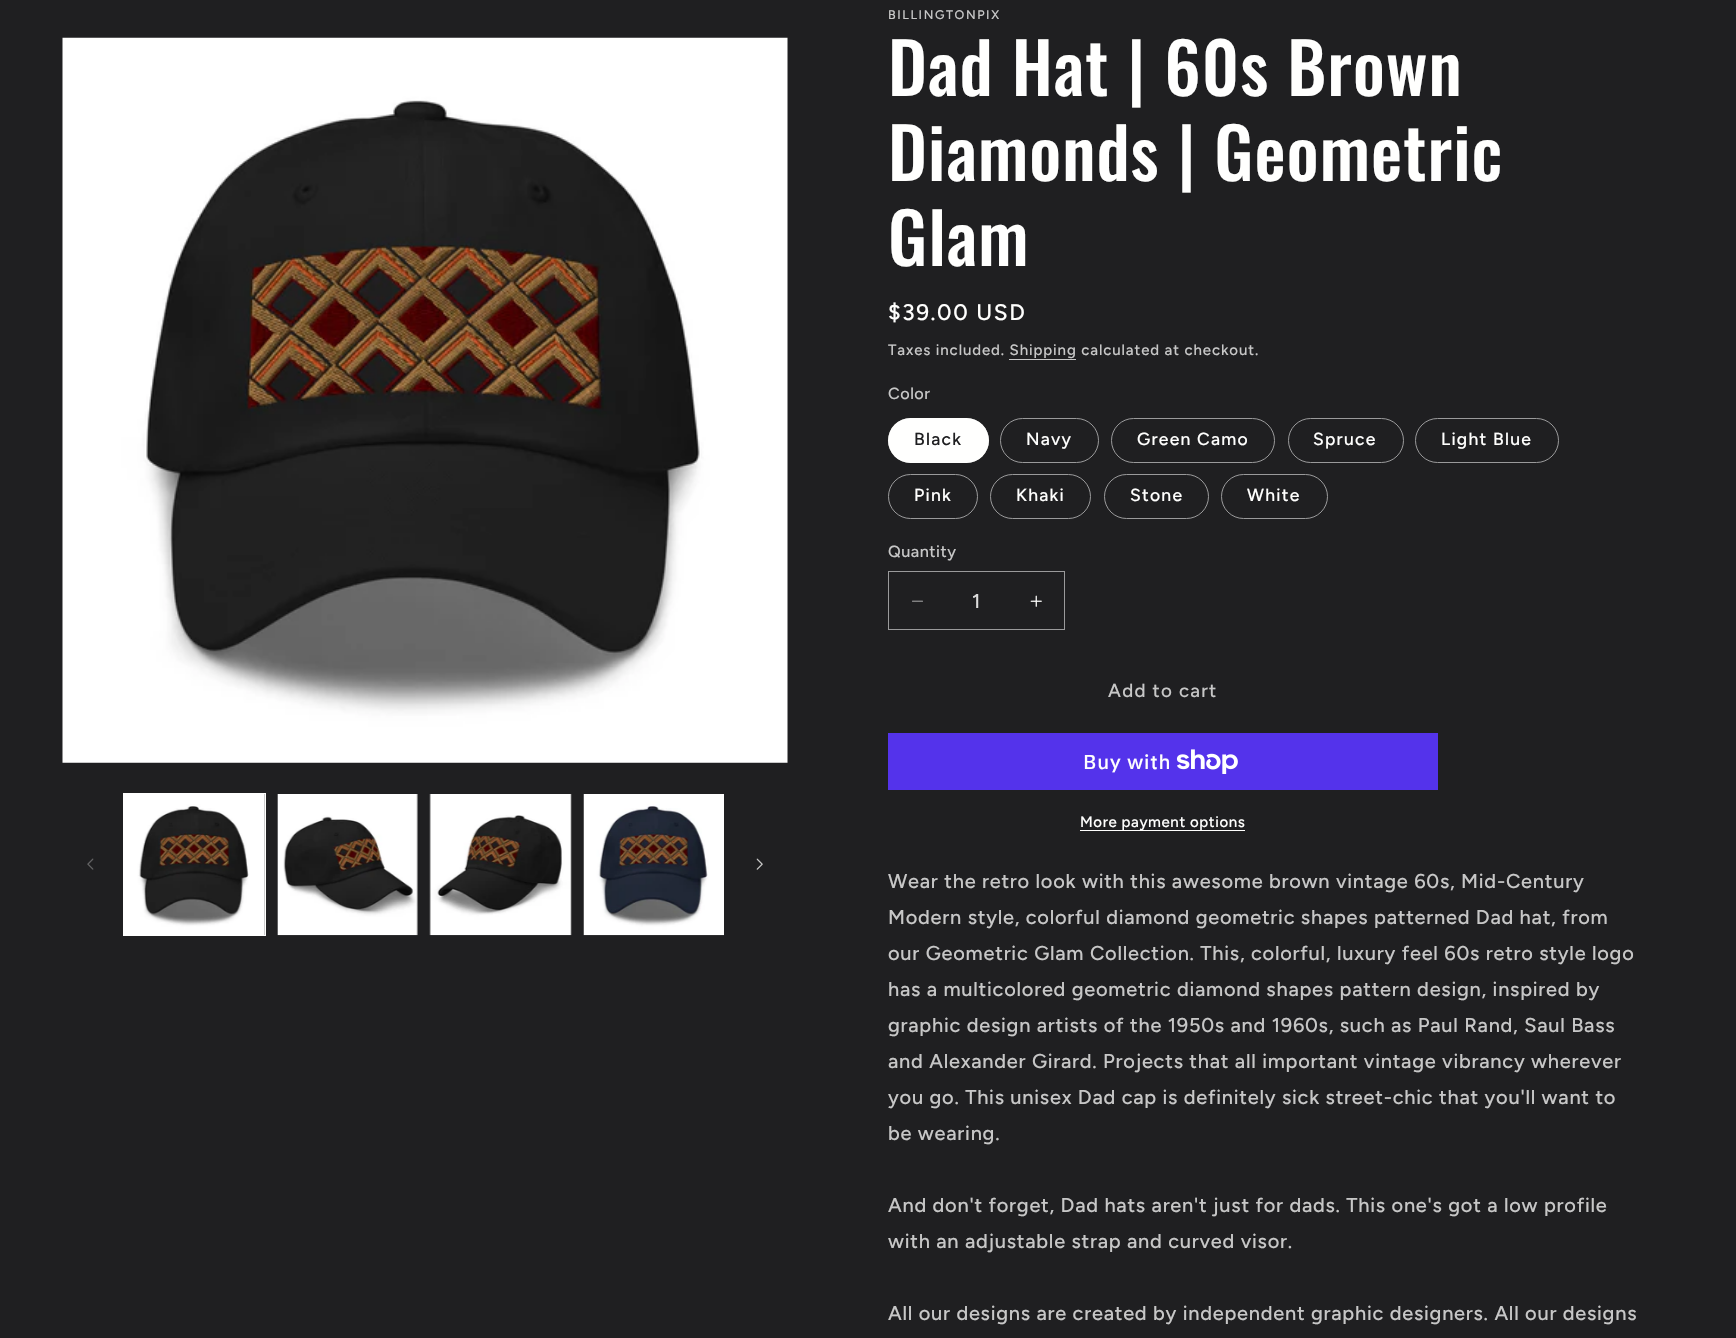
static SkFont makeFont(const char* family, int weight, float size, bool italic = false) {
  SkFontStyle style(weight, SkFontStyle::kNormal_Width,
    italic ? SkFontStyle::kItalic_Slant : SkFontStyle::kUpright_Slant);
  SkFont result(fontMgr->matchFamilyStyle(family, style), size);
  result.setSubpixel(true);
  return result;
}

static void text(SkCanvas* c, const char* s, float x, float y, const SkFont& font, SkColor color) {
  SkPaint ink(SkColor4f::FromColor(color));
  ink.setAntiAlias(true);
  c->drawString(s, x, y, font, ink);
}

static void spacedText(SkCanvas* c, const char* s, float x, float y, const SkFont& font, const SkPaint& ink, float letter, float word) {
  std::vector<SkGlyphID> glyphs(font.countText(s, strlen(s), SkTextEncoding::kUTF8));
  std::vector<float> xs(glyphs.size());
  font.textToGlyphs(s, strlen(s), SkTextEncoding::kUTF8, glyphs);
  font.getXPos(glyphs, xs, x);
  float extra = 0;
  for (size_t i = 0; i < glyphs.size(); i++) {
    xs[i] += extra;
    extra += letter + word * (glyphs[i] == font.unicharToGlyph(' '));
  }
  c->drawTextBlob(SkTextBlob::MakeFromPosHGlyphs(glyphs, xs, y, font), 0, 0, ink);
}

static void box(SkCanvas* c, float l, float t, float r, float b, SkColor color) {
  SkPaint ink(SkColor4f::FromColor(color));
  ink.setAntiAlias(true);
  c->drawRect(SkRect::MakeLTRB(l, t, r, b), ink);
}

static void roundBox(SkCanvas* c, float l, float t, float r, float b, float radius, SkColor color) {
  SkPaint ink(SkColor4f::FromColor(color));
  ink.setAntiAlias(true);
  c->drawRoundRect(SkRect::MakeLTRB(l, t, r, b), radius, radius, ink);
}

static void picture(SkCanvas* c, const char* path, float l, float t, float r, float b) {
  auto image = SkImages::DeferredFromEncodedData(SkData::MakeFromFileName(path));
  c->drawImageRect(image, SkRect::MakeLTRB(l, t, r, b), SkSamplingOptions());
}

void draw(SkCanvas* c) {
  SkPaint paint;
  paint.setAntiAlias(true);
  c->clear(0xff1f1f21);
  picture(c, "img_01.png", 62, 37, 788, 763);
  picture(c, "img_02.png", 87, 858, 94, 870);
  paint.setStyle(SkPaint::kStroke_Style);
  paint.setStrokeWidth(1);
  paint.setColor(0xfffffffe);
  c->drawRect(SkRect::MakeLTRB(123.5f, 793.5f, 265.5f, 935.5f), paint);
  picture(c, "img_03.png", 124, 794, 265, 935);
  picture(c, "img_04.png", 277, 794, 418, 936);
  picture(c, "img_05.png", 429, 794, 572, 936);
  picture(c, "img_06.png", 583, 794, 724, 936);
  picture(c, "img_07.png", 756, 858, 763, 870);
  SkFont face1 = makeFont("Figtree", 500, 12.5f);
  paint.setStyle(SkPaint::kFill_Style);
  paint.setColor(0xffc7c7c7);
  spacedText(c, "BILLINGTONPIX", 888, 19, face1, paint, 1.6f, 0);
  SkFont face2 = makeFont("Oswald", 500, 70);
  paint.setColor(0xfffffffe);
  spacedText(c, "Dad Hat | 60s Brown", 888, 96, face2, paint, 1.05f, 0);
  spacedText(c, "Diamonds | Geometric", 888, 181, face2, paint, 1.05f, 0);
  spacedText(c, "Glam", 888, 266, face2, paint, 1.05f, 0);
  SkFont face3 = makeFont("Figtree", 500, 22.5f);
  spacedText(c, "$39.00 USD", 888, 320, face3, paint, 1.6f, 0);
  SkFont face4 = makeFont("Figtree", 500, 15);
  paint.setColor(0xffc7c7c7);
  spacedText(c, "Taxes included. Shipping calculated at checkout.", 888, 355, face4, paint, 0.9f, 0);
  box(c, 1009, 359, 1076, 360, 0xffc7c7c7);
  SkFont face5 = makeFont("Figtree", 500, 16.25f);
  spacedText(c, "Color", 888, 399, face5, paint, 0.5f, 0);
  roundBox(c, 888, 418, 989, 463, 22.5f, 0xfffffffe);
  paint.setStyle(SkPaint::kStroke_Style);
  paint.setColor(0x8cfffffe);
  c->drawRoundRect(SkRect::MakeLTRB(888.5f, 418.5f, 988.5f, 462.5f), 22, 22, paint);
  SkFont face6 = makeFont("Figtree", 500, 17.5f);
  paint.setStyle(SkPaint::kFill_Style);
  paint.setColor(0xff1f1f21);
  spacedText(c, "Black", 914, 445, face6, paint, 1.25f, 0);
  paint.setStyle(SkPaint::kStroke_Style);
  paint.setColor(0xff9a9a9b);
  c->drawRoundRect(SkRect::MakeLTRB(1000.5f, 418.5f, 1098.5f, 462.5f), 22, 22, paint);
  paint.setStyle(SkPaint::kFill_Style);
  paint.setColor(0xfffffffe);
  spacedText(c, "Navy", 1026, 445, face6, paint, 1.25f, 0);
  paint.setStyle(SkPaint::kStroke_Style);
  paint.setColor(0xff9a9a9b);
  c->drawRoundRect(SkRect::MakeLTRB(1111.5f, 418.5f, 1274.5f, 462.5f), 22, 22, paint);
  paint.setStyle(SkPaint::kFill_Style);
  paint.setColor(0xfffffffe);
  spacedText(c, "Green Camo", 1137, 445, face6, paint, 1.25f, 0);
  paint.setStyle(SkPaint::kStroke_Style);
  paint.setColor(0xff9a9a9b);
  c->drawRoundRect(SkRect::MakeLTRB(1288.5f, 418.5f, 1403.5f, 462.5f), 22, 22, paint);
  paint.setStyle(SkPaint::kFill_Style);
  paint.setColor(0xfffffffe);
  spacedText(c, "Spruce", 1313, 445, face6, paint, 1.25f, 0);
  paint.setStyle(SkPaint::kStroke_Style);
  paint.setColor(0xff9a9a9b);
  c->drawRoundRect(SkRect::MakeLTRB(1415.5f, 418.5f, 1558.5f, 462.5f), 22, 22, paint);
  paint.setStyle(SkPaint::kFill_Style);
  paint.setColor(0xfffffffe);
  spacedText(c, "Light Blue", 1441, 445, face6, paint, 1.25f, 0);
  paint.setStyle(SkPaint::kStroke_Style);
  paint.setColor(0xff9a9a9b);
  c->drawRoundRect(SkRect::MakeLTRB(888.5f, 474.5f, 977.5f, 518.5f), 22, 22, paint);
  paint.setStyle(SkPaint::kFill_Style);
  paint.setColor(0xfffffffe);
  spacedText(c, "Pink", 914, 501, face6, paint, 1.25f, 0);
  paint.setStyle(SkPaint::kStroke_Style);
  paint.setColor(0xff9a9a9b);
  c->drawRoundRect(SkRect::MakeLTRB(990.5f, 474.5f, 1090.5f, 518.5f), 22, 22, paint);
  paint.setStyle(SkPaint::kFill_Style);
  paint.setColor(0xfffffffe);
  spacedText(c, "Khaki", 1016, 501, face6, paint, 1.25f, 0);
  paint.setStyle(SkPaint::kStroke_Style);
  paint.setColor(0xff9a9a9b);
  c->drawRoundRect(SkRect::MakeLTRB(1104.5f, 474.5f, 1208.5f, 518.5f), 22, 22, paint);
  paint.setStyle(SkPaint::kFill_Style);
  paint.setColor(0xfffffffe);
  spacedText(c, "Stone", 1130, 501, face6, paint, 1.25f, 0);
  paint.setStyle(SkPaint::kStroke_Style);
  paint.setColor(0xff9a9a9b);
  c->drawRoundRect(SkRect::MakeLTRB(1221.5f, 474.5f, 1327.5f, 518.5f), 22, 22, paint);
  paint.setStyle(SkPaint::kFill_Style);
  paint.setColor(0xfffffffe);
  spacedText(c, "White", 1247, 501, face6, paint, 1.25f, 0);
  paint.setColor(0xffc7c7c7);
  spacedText(c, "Quantity", 888, 557, face5, paint, 0.5f, 0);
  picture(c, "img_08.png", 912, 600, 923, 602);
  picture(c, "img_09.png", 1030, 595, 1042, 607);
  paint.setStyle(SkPaint::kStroke_Style);
  paint.setColor(0xff9a9a9b);
  c->drawRect(SkRect::MakeLTRB(888.5f, 571.5f, 1064.5f, 629.5f), paint);
  SkFont face7 = makeFont("Figtree", 500, 20);
  text(c, "1", 972, 608, face7, 0xffdddddd);
  SkFont face8 = makeFont("Figtree", 500, 18.75f);
  paint.setStyle(SkPaint::kFill_Style);
  paint.setColor(0xffc7c7c7);
  spacedText(c, "Add to cart", 1108, 697, face8, paint, 1.25f, 0);
  box(c, 888, 733, 1438, 790, 0xff5433eb);
  SkFont face9 = makeFont("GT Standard", 500, 20);
  paint.setColor(0xfffffffe);
  spacedText(c, "Buy with", 1083, 769, face9, paint, 0.75f, 0);
  picture(c, "img_10.png", 1176, 749, 1238, 774);
  box(c, 1080, 830, 1245, 831, 0xfffffffe);
  spacedText(c, "More payment options", 1080, 827, face4, paint, 0.6f, 0);
  paint.setColor(0xffc7c7c7);
  spacedText(c, "Wear the retro look with this awesome brown vintage 60s, Mid-Century", 888, 888, face7, paint, 0.75f, 0);
  spacedText(c, "Modern style, colorful diamond geometric shapes patterned Dad hat, from", 888, 924, face7, paint, 0.75f, 0);
  spacedText(c, "our Geometric Glam Collection. This, colorful, luxury feel 60s retro style logo", 888, 960, face7, paint, 0.75f, 0);
  spacedText(c, "has a multicolored geometric diamond shapes pattern design, inspired by", 888, 996, face7, paint, 0.75f, 0);
  spacedText(c, "graphic design artists of the 1950s and 1960s, such as Paul Rand, Saul Bass", 888, 1032, face7, paint, 0.75f, 0);
  spacedText(c, "and Alexander Girard. Projects that all important vintage vibrancy wherever", 888, 1068, face7, paint, 0.75f, 0);
  spacedText(c, "you go. This unisex Dad cap is definitely sick street-chic that you'll want to", 888, 1104, face7, paint, 0.75f, 0);
  spacedText(c, "be wearing.", 888, 1140, face7, paint, 0.75f, 0);
  spacedText(c, "And don't forget, Dad hats aren't just for dads. This one's got a low profile", 888, 1212, face7, paint, 0.75f, 0);
  spacedText(c, "with an adjustable strap and curved visor.", 888, 1248, face7, paint, 0.75f, 0);
  spacedText(c, "All our designs are created by independent graphic designers. All our designs", 888, 1320, face7, paint, 0.75f, 0);
}
